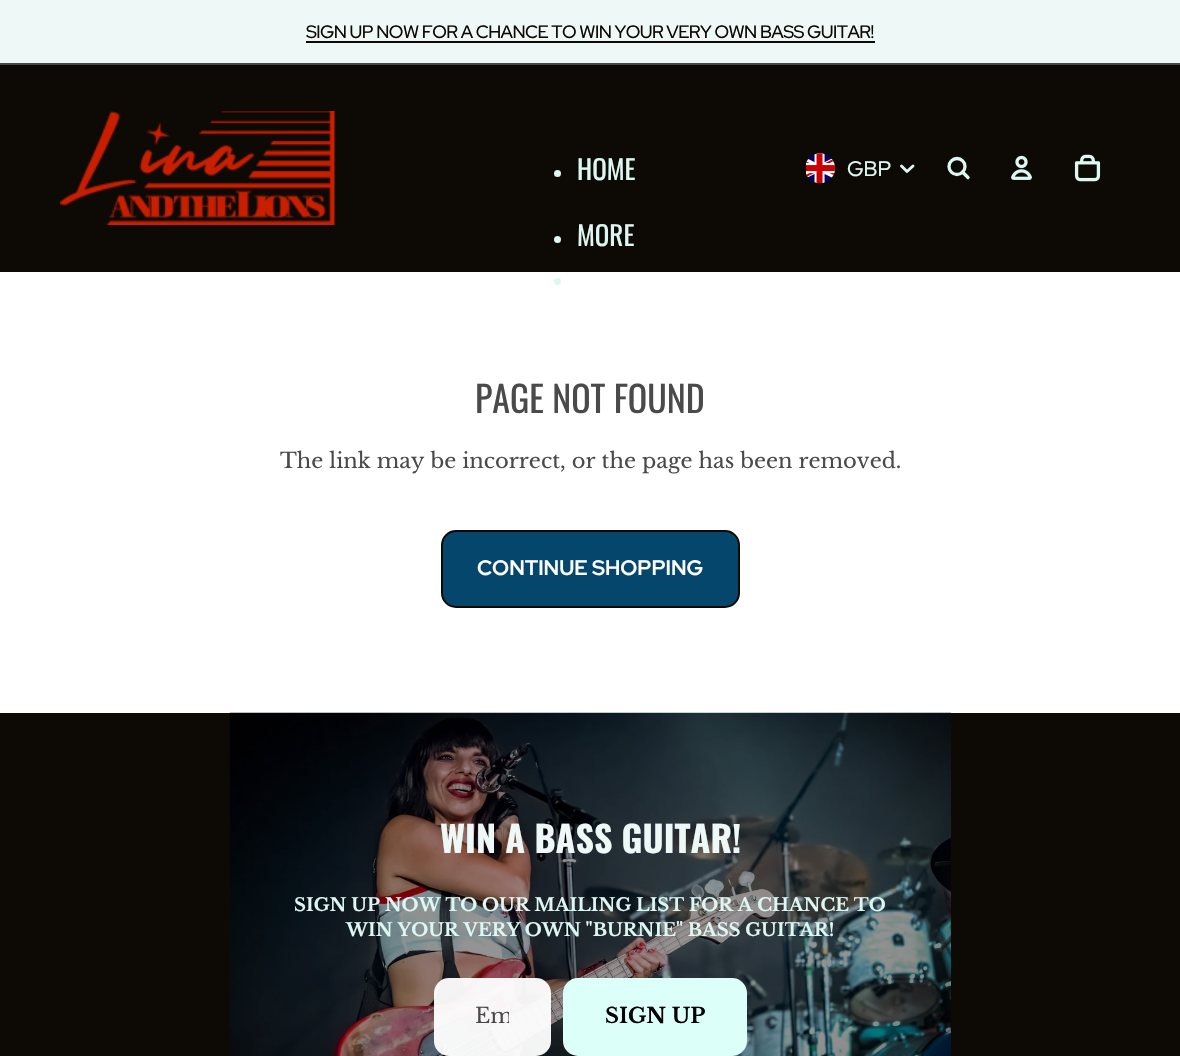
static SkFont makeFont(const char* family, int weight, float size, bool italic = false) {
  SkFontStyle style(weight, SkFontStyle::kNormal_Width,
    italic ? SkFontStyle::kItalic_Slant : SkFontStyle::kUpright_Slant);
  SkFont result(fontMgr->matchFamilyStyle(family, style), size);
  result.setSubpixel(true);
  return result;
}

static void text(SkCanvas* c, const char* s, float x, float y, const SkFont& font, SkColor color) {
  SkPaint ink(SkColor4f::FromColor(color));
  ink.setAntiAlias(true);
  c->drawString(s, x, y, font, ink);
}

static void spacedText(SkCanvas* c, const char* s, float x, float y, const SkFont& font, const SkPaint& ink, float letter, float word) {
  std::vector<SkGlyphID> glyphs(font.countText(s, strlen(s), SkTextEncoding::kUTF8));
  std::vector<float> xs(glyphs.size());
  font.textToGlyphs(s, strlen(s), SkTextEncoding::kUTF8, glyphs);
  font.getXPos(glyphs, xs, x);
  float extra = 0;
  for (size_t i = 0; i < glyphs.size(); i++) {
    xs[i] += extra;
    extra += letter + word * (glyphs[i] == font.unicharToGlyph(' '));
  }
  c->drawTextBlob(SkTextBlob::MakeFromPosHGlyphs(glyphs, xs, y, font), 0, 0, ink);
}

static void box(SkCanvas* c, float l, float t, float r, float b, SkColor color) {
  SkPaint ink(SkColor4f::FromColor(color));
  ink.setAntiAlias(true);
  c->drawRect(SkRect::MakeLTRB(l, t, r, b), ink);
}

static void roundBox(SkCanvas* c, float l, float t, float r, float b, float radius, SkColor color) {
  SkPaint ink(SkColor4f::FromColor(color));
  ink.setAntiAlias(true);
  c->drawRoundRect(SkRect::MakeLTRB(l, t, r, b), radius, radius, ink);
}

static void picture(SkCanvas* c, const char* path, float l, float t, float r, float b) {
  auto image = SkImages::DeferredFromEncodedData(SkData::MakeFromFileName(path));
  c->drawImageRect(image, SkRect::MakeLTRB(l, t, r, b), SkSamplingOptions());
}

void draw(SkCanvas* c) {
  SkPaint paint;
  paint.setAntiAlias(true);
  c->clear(0xffffffff);
  box(c, 0, 0, 1180, 63, 0xffeef9f7);
  box(c, 0, 63, 1180, 65, 0xff454848);
  SkFont face1 = makeFont("Red Hat Display", 500, 18);
  paint.setColor(0xff0d0904);
  spacedText(c, "SIGN UP NOW FOR A CHANCE TO WIN YOUR VERY OWN BASS GUITAR!", 306, 38, face1, paint, -0.55f, 0);
  box(c, 306, 41, 875, 43, 0xff0d0904);
  box(c, 0, 65, 1180, 272, 0xff0d0904);
  picture(c, "img_01.png", 60, 111, 335, 225);
  paint.setColor(0xffddf7f3);
  c->drawCircle(557.5f, 173.5f, 3.5f, paint);
  SkFont face2 = makeFont("Oswald", 400, 27);
  text(c, "HOME", 577, 180, face2, 0xffddf7f3);
  c->drawCircle(557.5f, 239.5f, 3.5f, paint);
  text(c, "MORE", 577, 246, face2, 0xffddf7f3);
  c->drawCircle(557.5f, 281.5f, 3.5f, paint);
  picture(c, "img_02.png", 806, 153, 836, 183);
  SkFont face3 = makeFont("Red Hat Display", 500, 21);
  text(c, "GBP", 847, 176, face3, 0xffddf7f3);
  paint.setStyle(SkPaint::kStroke_Style);
  paint.setStrokeWidth(2.9f);
  paint.setStrokeCap(SkPaint::kRound_Cap);
  paint.setStrokeJoin(SkPaint::kRound_Join);
  c->drawPath(SkPathBuilder().moveTo(913, 166).lineTo(907, 171.5f).lineTo(901.5f, 166).detach(), paint);
  paint.setStrokeWidth(3.3f);
  paint.setStrokeCap(SkPaint::kButt_Cap);
  paint.setStrokeJoin(SkPaint::kMiter_Join);
  c->drawCircle(957, 166.5f, 8, paint);
  paint.setStrokeCap(SkPaint::kRound_Cap);
  paint.setStrokeJoin(SkPaint::kRound_Join);
  c->drawPath(SkPathBuilder().moveTo(962.5f, 172).lineTo(968, 177.5f).detach(), paint);
  picture(c, "img_03.png", 1011, 155, 1032, 180);
  picture(c, "img_04.png", 1074, 154, 1101, 182);
  SkFont face4 = makeFont("Oswald", 400, 36);
  text(c, "PAGE NOT FOUND", 475, 413, face4, 0xff4a4a4a);
  SkFont face5 = makeFont("Libre Baskerville", 400, 21);
  text(c, "The link may be incorrect, or the page has been removed.", 280, 468, face5, 0xff4a4a4a);
  paint.setStyle(SkPaint::kFill_Style);
  paint.setColor(0xff05466d);
  c->drawRoundRect(SkRect::MakeLTRB(442, 531, 739, 607), 14, 14, paint);
  paint.setStyle(SkPaint::kStroke_Style);
  paint.setStrokeWidth(2);
  paint.setStrokeCap(SkPaint::kButt_Cap);
  paint.setStrokeJoin(SkPaint::kMiter_Join);
  paint.setColor(0xff0d0904);
  c->drawRoundRect(SkRect::MakeLTRB(442, 531, 739, 607), 14, 14, paint);
  SkFont face6 = makeFont("Red Hat Display", 700, 21);
  text(c, "CONTINUE SHOPPING", 477, 575, face6, 0xffffffff);
  box(c, 0, 713, 1180, 1056, 0xff0d0904);
  picture(c, "img_05.png", 229, 712, 951, 1056);
  SkFont face7 = makeFont("Oswald", 700, 36);
  text(c, "WIN A BASS GUITAR!", 440, 853, face7, 0xffeef9f7);
  SkFont face8 = makeFont("Libre Baskerville", 700, 18);
  text(c, "SIGN UP NOW TO OUR MAILING LIST FOR A CHANCE TO", 294, 911, face8, 0xffddf7f3);
  text(c, "WIN YOUR VERY OWN \"BURNIE\" BASS GUITAR!", 346, 936, face8, 0xffddf7f3);
  roundBox(c, 434, 978, 551, 1056, 15, 0xf2ffffff);
  c->save();
  c->clipRect(SkRect::MakeLTRB(476, 1002, 509, 1029));
  text(c, "Em", 475, 1023, face5, 0xff4a4a4a);
  c->restore();
  paint.setStyle(SkPaint::kFill_Style);
  paint.setColor(0xffddfffa);
  c->drawRoundRect(SkRect::MakeLTRB(564, 979, 746, 1055), 14, 14, paint);
  paint.setStyle(SkPaint::kStroke_Style);
  c->drawRoundRect(SkRect::MakeLTRB(564, 979, 746, 1055), 14, 14, paint);
  SkFont face9 = makeFont("Libre Baskerville", 700, 21);
  text(c, "SIGN UP", 605, 1023, face9, 0xff000000);
}
